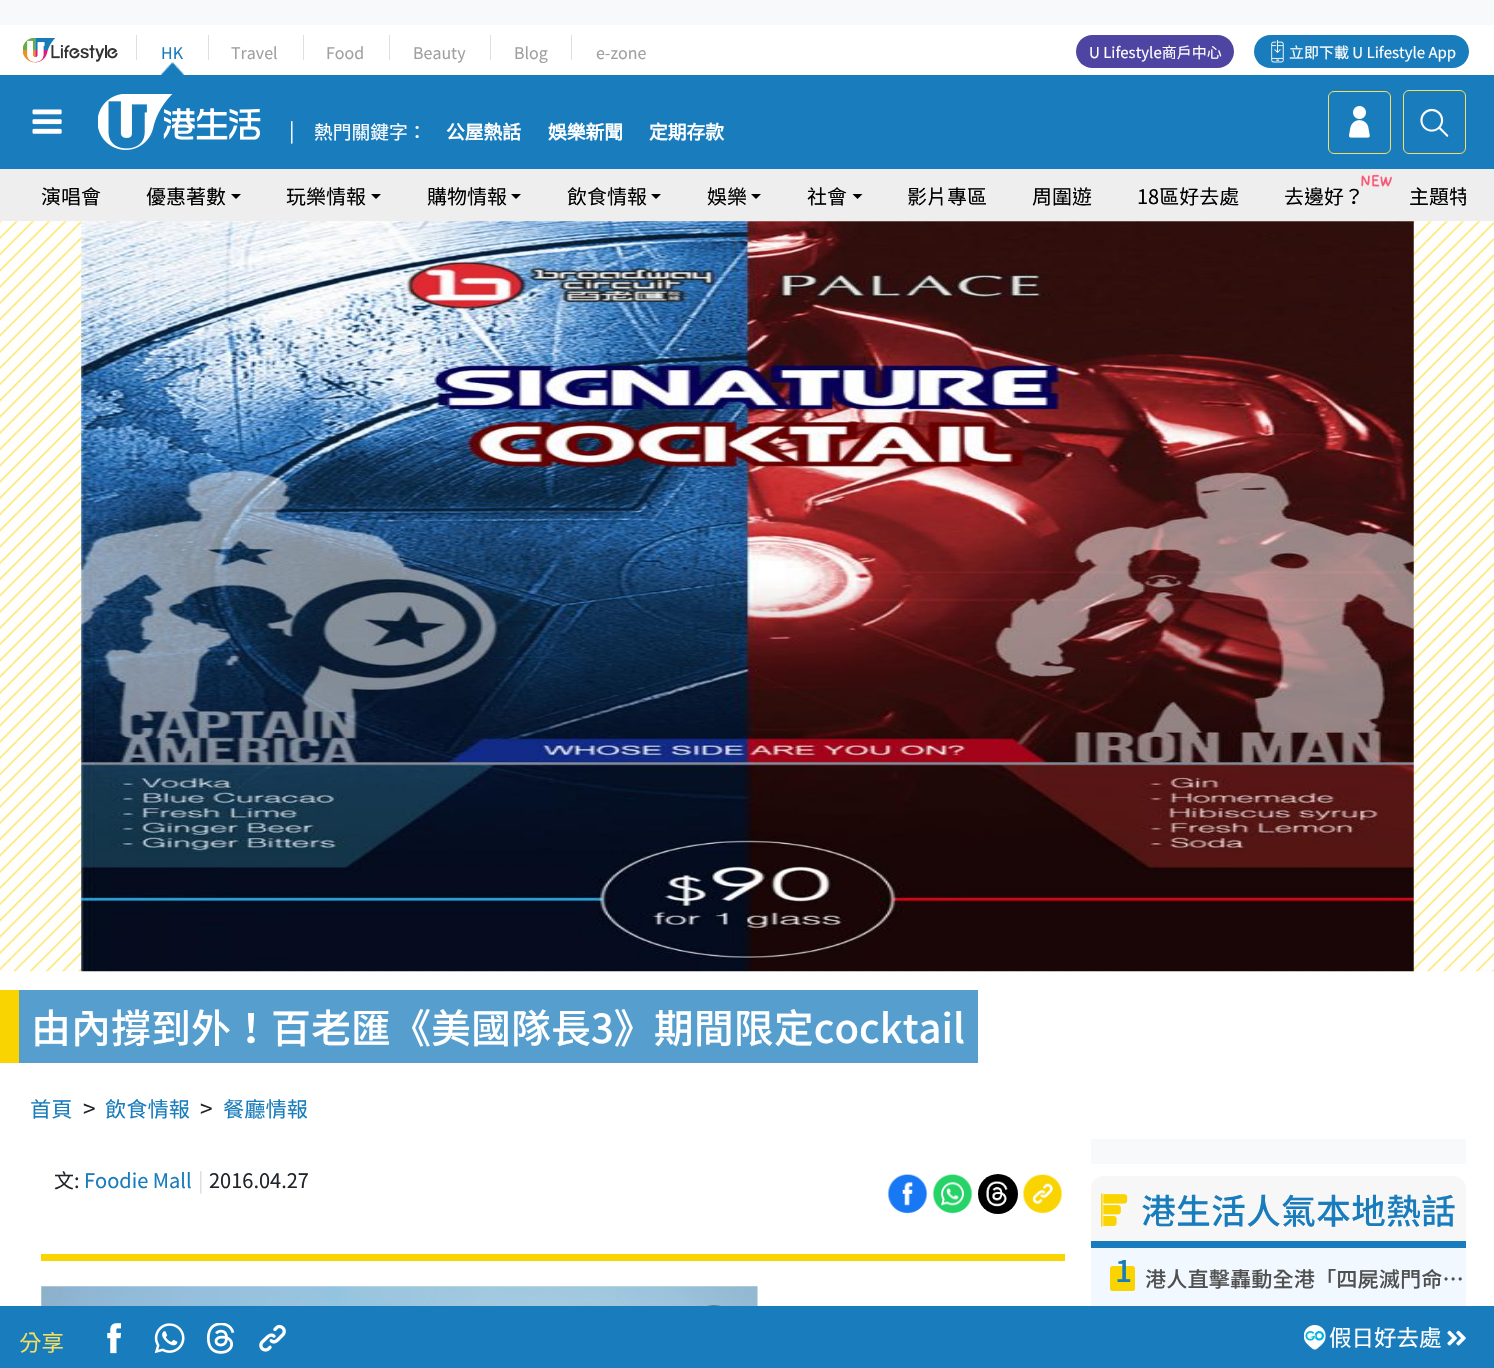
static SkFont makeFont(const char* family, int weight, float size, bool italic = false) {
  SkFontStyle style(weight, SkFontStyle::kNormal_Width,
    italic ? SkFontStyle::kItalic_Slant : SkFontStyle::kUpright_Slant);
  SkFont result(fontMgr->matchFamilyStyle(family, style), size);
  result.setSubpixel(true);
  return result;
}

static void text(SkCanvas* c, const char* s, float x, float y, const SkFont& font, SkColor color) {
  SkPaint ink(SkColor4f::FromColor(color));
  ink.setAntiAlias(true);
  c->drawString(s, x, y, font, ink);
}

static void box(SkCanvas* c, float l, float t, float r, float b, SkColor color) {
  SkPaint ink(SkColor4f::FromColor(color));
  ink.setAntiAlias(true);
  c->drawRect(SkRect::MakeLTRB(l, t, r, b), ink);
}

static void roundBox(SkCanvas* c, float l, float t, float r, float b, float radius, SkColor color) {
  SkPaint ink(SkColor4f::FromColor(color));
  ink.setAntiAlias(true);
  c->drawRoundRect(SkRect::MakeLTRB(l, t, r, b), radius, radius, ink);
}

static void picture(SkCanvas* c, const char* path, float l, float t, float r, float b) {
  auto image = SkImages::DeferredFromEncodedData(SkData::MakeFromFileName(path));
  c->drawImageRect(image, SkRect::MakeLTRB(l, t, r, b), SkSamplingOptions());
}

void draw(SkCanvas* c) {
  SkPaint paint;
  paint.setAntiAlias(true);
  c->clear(0xffffffff);
  box(c, 0, 0, 1494, 25, 0xfff8f9fa);
  picture(c, "img_01.png", 23, 38, 118, 63);
  box(c, 136, 35, 137, 60, 0xffdfdfdf);
  picture(c, "img_02.png", 161, 62, 184, 75);
  SkFont face1 = makeFont("Noto Sans TC", 400, 16);
  text(c, "HK", 161, 59, face1, 0xff197cbc);
  box(c, 208, 35, 209, 60, 0xffdfdfdf);
  text(c, "Travel", 231, 59, face1, 0xff9fa0a0);
  box(c, 303, 35, 304, 60, 0xffdfdfdf);
  text(c, "Food", 326, 59, face1, 0xff9fa0a0);
  box(c, 389, 35, 390, 60, 0xffdfdfdf);
  text(c, "Beauty", 413, 59, face1, 0xff9fa0a0);
  box(c, 490, 35, 491, 60, 0xffdfdfdf);
  text(c, "Blog", 514, 59, face1, 0xff9fa0a0);
  box(c, 571, 35, 572, 60, 0xffdfdfdf);
  text(c, "e-zone", 596, 59, face1, 0xff9fa0a0);
  roundBox(c, 1076, 35, 1234, 68, 16.5f, 0xff4e45a3);
  SkFont face2 = makeFont("Noto Sans TC", 400, 15);
  text(c, "U Lifestyle商戶中心", 1089, 58, face2, 0xffffffff);
  roundBox(c, 1254, 35, 1469, 68, 16.5f, 0xff197cbc);
  picture(c, "img_03.png", 1271, 40, 1284, 63);
  text(c, "立即下載 U Lifestyle App", 1289, 58, face2, 0xffffffff);
  box(c, 0, 75, 1494, 169, 0xff197cbc);
  picture(c, "img_04.png", 32, 109, 62, 134);
  picture(c, "img_05.png", 98, 94, 261, 150);
  SkFont face3 = makeFont("Noto Sans TC", 400, 20);
  text(c, "|", 289, 138, face3, 0xffffffff);
  SkFont face4 = makeFont("Noto Sans CJK HK", 400, 18.75f);
  text(c, "熱門關鍵字：", 314, 139, face4, 0xffffffff);
  SkFont face5 = makeFont("Noto Sans CJK HK", 700, 18.75f);
  text(c, "公屋熱話", 446, 139, face5, 0xffffffff);
  text(c, "娛樂新聞", 548, 139, face5, 0xffffffff);
  text(c, "定期存款", 649, 139, face5, 0xffffffff);
  paint.setStyle(SkPaint::kStroke_Style);
  paint.setStrokeWidth(1);
  paint.setColor(0xfff5df63);
  c->drawRoundRect(SkRect::MakeLTRB(1328.5f, 91.5f, 1390.5f, 153.5f), 5.5f, 5.5f, paint);
  picture(c, "img_06.png", 1349, 106, 1370, 138);
  c->drawRoundRect(SkRect::MakeLTRB(1403.5f, 90.5f, 1465.5f, 153.5f), 5.5f, 5.5f, paint);
  picture(c, "img_07.png", 1420, 108, 1449, 137);
  box(c, 0, 169, 1494, 221, 0xffeeeeee);
  text(c, "演唱會", 41, 204, face3, 0xff000000);
  text(c, "優惠著數", 146, 204, face3, 0xff000000);
  paint.setStyle(SkPaint::kFill_Style);
  paint.setColor(0xff000000);
  c->drawPath(SkPathBuilder().moveTo(231, 194).lineTo(241, 194).lineTo(236, 199).close().detach(), paint);
  text(c, "玩樂情報", 286, 204, face3, 0xff000000);
  c->drawPath(SkPathBuilder().moveTo(371, 194).lineTo(381, 194).lineTo(376, 199).close().detach(), paint);
  text(c, "購物情報", 427, 204, face3, 0xff000000);
  c->drawPath(SkPathBuilder().moveTo(511, 194).lineTo(521, 194).lineTo(516, 199).close().detach(), paint);
  text(c, "飲食情報", 567, 204, face3, 0xff000000);
  c->drawPath(SkPathBuilder().moveTo(651, 194).lineTo(661, 194).lineTo(656, 199).close().detach(), paint);
  text(c, "娛樂", 707, 204, face3, 0xff000000);
  c->drawPath(SkPathBuilder().moveTo(751, 194).lineTo(761, 194).lineTo(756, 199).close().detach(), paint);
  text(c, "社會", 807, 204, face3, 0xff000000);
  c->drawPath(SkPathBuilder().moveTo(852.5f, 194).lineTo(862.5f, 194).lineTo(857.5f, 199).close().detach(), paint);
  text(c, "影片專區", 907, 204, face3, 0xff000000);
  text(c, "周圍遊", 1032, 204, face3, 0xff000000);
  text(c, "18區好去處", 1137, 204, face3, 0xff000000);
  picture(c, "img_08.png", 1361, 174, 1392, 187);
  text(c, "去邊好？", 1284, 204, face3, 0xff000000);
  c->save();
  c->clipRect(SkRect::MakeLTRB(29, 169, 1466, 221));
  text(c, "主題特", 1409, 204, face3, 0xff000000);
  c->restore();
  picture(c, "img_09.png", 0, 221, 1494, 972);
  picture(c, "img_10.png", 81, 221, 1414, 972);
  box(c, 19, 990, 978, 1063, 0xff559ecd);
  box(c, 0, 990, 19, 1063, 0xfff9d400);
  SkFont face6 = makeFont("Noto Sans TC", 500, 40);
  text(c, "由內撐到外！百老匯《美國隊長3》期間限定cocktail", 31, 1043, face6, 0xffffffff);
  SkFont face7 = makeFont("Noto Sans TC", 400, 21.25f);
  text(c, "首頁", 30, 1117, face7, 0xff197cbc);
  SkFont face8 = makeFont("Noto Sans TC", 400, 22.5f);
  text(c, ">", 83, 1117, face8, 0xff212529);
  text(c, "飲食情報", 105, 1117, face7, 0xff197cbc);
  text(c, ">", 200, 1117, face8, 0xff212529);
  text(c, "餐廳情報", 223, 1117, face7, 0xff197cbc);
  text(c, "文:", 54, 1188, face3, 0xff212529);
  text(c, "Foodie Mall", 84, 1188, face3, 0xff197cbc);
  text(c, "|", 198, 1188, face3, 0xffdcdddd);
  text(c, "2016.04.27", 209, 1188, face3, 0xff212529);
  picture(c, "img_11.png", 887, 1173, 928, 1214);
  picture(c, "img_12.png", 932, 1173, 973, 1214);
  c->drawCircle(998, 1194, 20, paint);
  picture(c, "img_13.png", 986, 1181, 1008, 1207);
  picture(c, "img_14.png", 1023, 1174, 1062, 1213);
  box(c, 41, 1254, 1065, 1261, 0xfff9d400);
  picture(c, "img_15.png", 41, 1286, 758, 1306);
  paint.setColor(0x59000000);
  c->drawCircle(714, 1330, 25, paint);
  box(c, 1091, 1139, 1466, 1164, 0xfff8f9fa);
  roundBox(c, 1091, 1176, 1466, 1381, 13, 0xfff7f7f7);
  box(c, 1091, 1241, 1466, 1248, 0xff197cbc);
  picture(c, "img_16.png", 1101, 1193, 1128, 1227);
  SkFont face9 = makeFont("Noto Sans TC", 500, 35);
  text(c, "港生活人氣本地熱話", 1141, 1224, face9, 0xff197cbc);
  box(c, 1091, 1248, 1466, 1305, 0xfff1f8ff);
  roundBox(c, 1110, 1266, 1135, 1291, 2.5f, 0xfff9d400);
  SkFont face10 = makeFont("Noto Sans TC", 500, 30);
  text(c, "1", 1115, 1282, face10, 0xff197cbc);
  SkFont face11 = makeFont("Noto Sans TC", 500, 21.25f);
  text(c, "港人直擊轟動全港「四屍滅門命…", 1145, 1287, face11, 0xff505050);
  box(c, 0, 1306, 1494, 1368, 0xff197cbc);
  text(c, "分享", 19, 1351, face8, 0xfff5df63);
  picture(c, "img_17.png", 107, 1323, 121, 1354);
  picture(c, "img_18.png", 154, 1323, 185, 1354);
  picture(c, "img_19.png", 206, 1323, 235, 1354);
  picture(c, "img_20.png", 259, 1324, 286, 1352);
  picture(c, "img_21.png", 1304, 1325, 1326, 1350);
  SkFont face12 = makeFont("Noto Sans CJK HK", 400, 22.5f);
  text(c, "假日好去處", 1329, 1346, face12, 0xffffffff);
  picture(c, "img_22.png", 1447, 1330, 1466, 1346);
}
